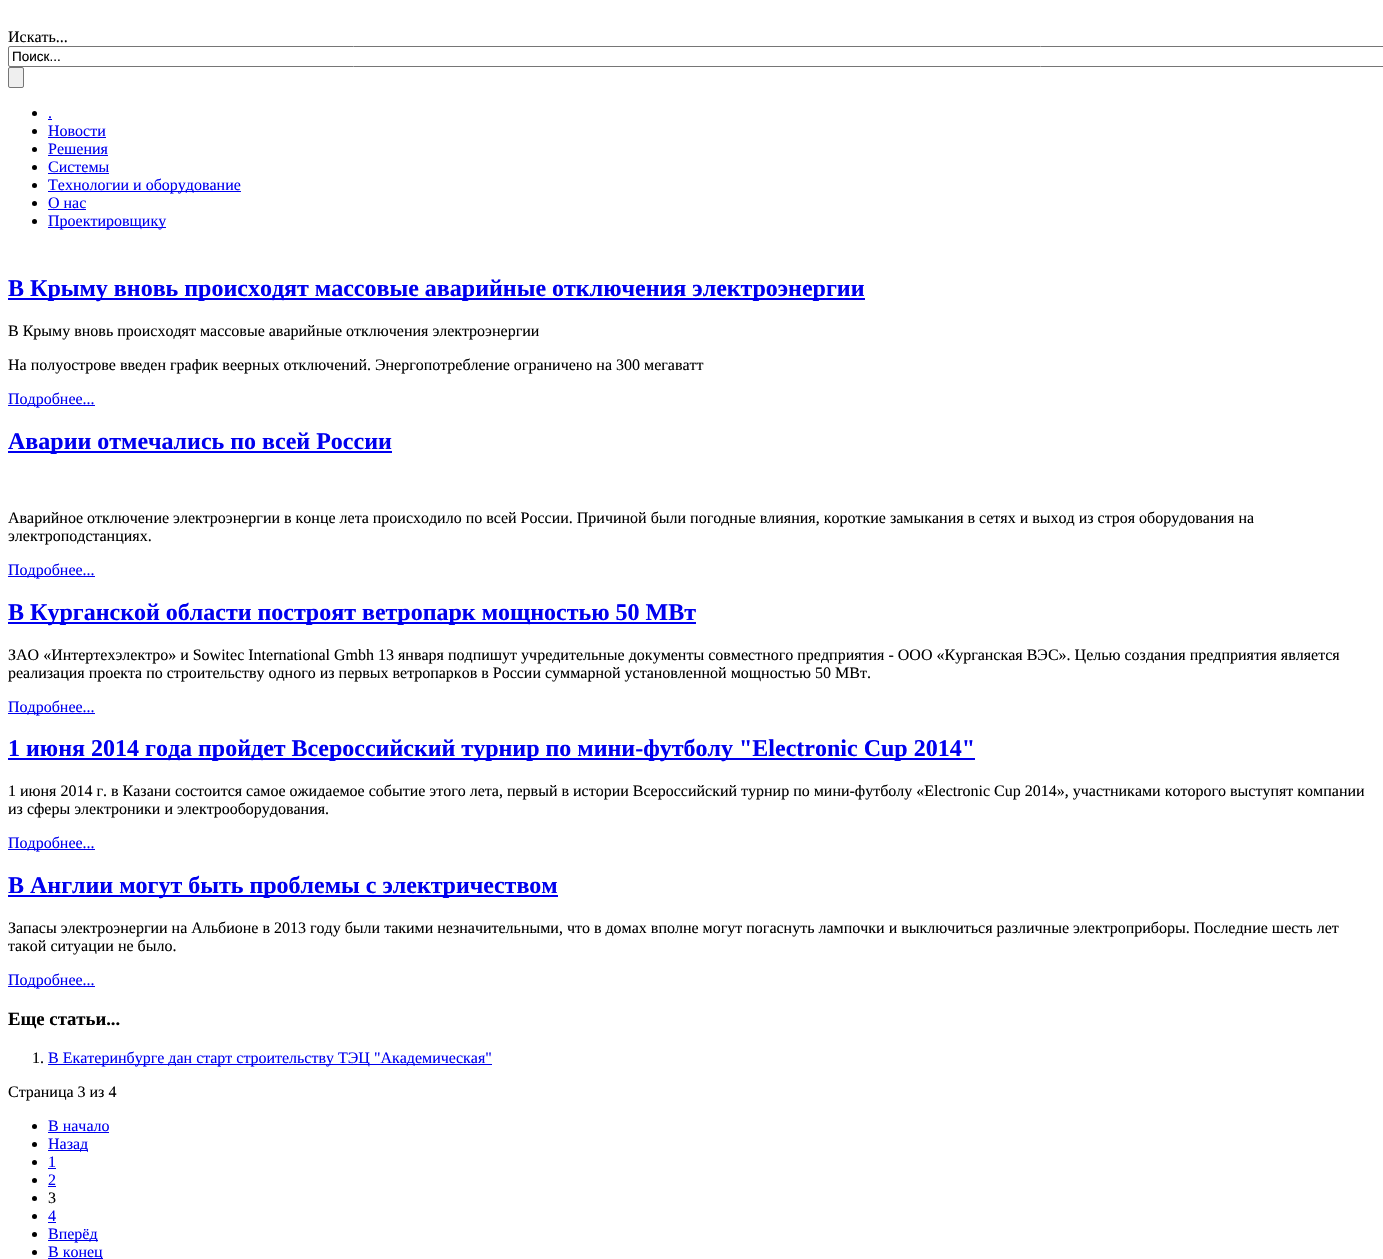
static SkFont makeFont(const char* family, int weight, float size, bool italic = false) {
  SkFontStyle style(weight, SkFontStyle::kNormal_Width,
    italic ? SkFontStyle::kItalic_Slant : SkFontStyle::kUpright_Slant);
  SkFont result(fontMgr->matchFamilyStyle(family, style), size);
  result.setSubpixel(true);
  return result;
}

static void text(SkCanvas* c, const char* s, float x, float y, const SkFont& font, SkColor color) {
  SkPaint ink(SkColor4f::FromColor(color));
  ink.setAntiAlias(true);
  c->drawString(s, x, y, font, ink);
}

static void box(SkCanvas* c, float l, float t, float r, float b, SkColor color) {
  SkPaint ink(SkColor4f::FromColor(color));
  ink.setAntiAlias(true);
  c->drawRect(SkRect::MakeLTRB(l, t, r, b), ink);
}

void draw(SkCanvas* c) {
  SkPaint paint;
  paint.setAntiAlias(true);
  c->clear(0xffffffff);
  SkFont face1 = makeFont("Liberation Serif", 400, 16);
  text(c, "Искать...", 8, 42, face1, 0xff000000);
  paint.setStyle(SkPaint::kStroke_Style);
  paint.setStrokeWidth(1);
  paint.setColor(0xff767676);
  c->drawRoundRect(SkRect::MakeLTRB(8.5f, 46.5f, 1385.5f, 66.5f), 1.5f, 1.5f, paint);
  SkFont face2 = makeFont("Liberation Sans", 400, 13.5f);
  text(c, "Поиск...", 12, 61, face2, 0xff000000);
  paint.setStyle(SkPaint::kFill_Style);
  paint.setColor(0xffefefef);
  c->drawRoundRect(SkRect::MakeLTRB(8.5f, 67.5f, 23.5f, 87.5f), 1.5f, 1.5f, paint);
  paint.setStyle(SkPaint::kStroke_Style);
  paint.setColor(0xff767676);
  c->drawRoundRect(SkRect::MakeLTRB(8.5f, 67.5f, 23.5f, 87.5f), 1.5f, 1.5f, paint);
  paint.setStyle(SkPaint::kFill_Style);
  paint.setColor(0xff000000);
  c->drawCircle(34.5f, 113.5f, 2.5f, paint);
  text(c, ".", 48, 118, face1, 0xff0000ee);
  box(c, 48, 119, 52, 120, 0xff0000ee);
  c->drawCircle(34.5f, 131.5f, 2.5f, paint);
  text(c, "Новости", 48, 136, face1, 0xff0000ee);
  box(c, 48, 137, 106, 138, 0xff0000ee);
  c->drawCircle(34.5f, 149.5f, 2.5f, paint);
  text(c, "Решения", 48, 154, face1, 0xff0000ee);
  box(c, 48, 155, 108, 156, 0xff0000ee);
  c->drawCircle(34.5f, 167.5f, 2.5f, paint);
  text(c, "Системы", 48, 172, face1, 0xff0000ee);
  box(c, 48, 173, 109, 174, 0xff0000ee);
  c->drawCircle(34.5f, 185.5f, 2.5f, paint);
  box(c, 48, 191, 241, 192, 0xff0000ee);
  text(c, "Технологии и оборудование", 48, 190, face1, 0xff0000ee);
  c->drawCircle(34.5f, 203.5f, 2.5f, paint);
  text(c, "О нас", 48, 208, face1, 0xff0000ee);
  box(c, 48, 209, 86, 210, 0xff0000ee);
  c->drawCircle(34.5f, 221.5f, 2.5f, paint);
  box(c, 48, 227, 166, 228, 0xff0000ee);
  text(c, "Проектировщику", 48, 226, face1, 0xff0000ee);
  box(c, 8, 298, 865, 300, 0xff0000ee);
  SkFont face3 = makeFont("Liberation Serif", 700, 24);
  text(c, "В Крыму вновь происходят массовые аварийные отключения электроэнергии", 8, 296, face3, 0xff0000ee);
  text(c, "В Крыму вновь происходят массовые аварийные отключения электроэнергии", 8, 336, face1, 0xff000000);
  text(c, "На полуострове введен график веерных отключений. Энергопотребление ограничено на 300 мегаватт", 8, 370, face1, 0xff000000);
  box(c, 8, 405, 95, 406, 0xff0000ee);
  text(c, "Подробнее...", 8, 404, face1, 0xff0000ee);
  box(c, 8, 451, 392, 453, 0xff0000ee);
  text(c, "Аварии отмечались по всей России", 8, 449, face3, 0xff0000ee);
  text(c, "Аварийное отключение электроэнергии в конце лета происходило по всей России. Причиной были погодные влияния, короткие замыкания в сетях и выход из строя оборудования на", 8, 523, face1, 0xff000000);
  text(c, "электроподстанциях.", 8, 541, face1, 0xff000000);
  box(c, 8, 576, 95, 577, 0xff0000ee);
  text(c, "Подробнее...", 8, 575, face1, 0xff0000ee);
  box(c, 8, 622, 696, 624, 0xff0000ee);
  text(c, "В Курганской области построят ветропарк мощностью 50 МВт", 8, 620, face3, 0xff0000ee);
  text(c, "ЗАО «Интертехэлектро» и Sowitec International Gmbh 13 января подпишут учредительные документы совместного предприятия - ООО «Курганская ВЭС». Целью создания предприятия является", 8, 660, face1, 0xff000000);
  text(c, "реализация проекта по строительству одного из первых ветропарков в России суммарной установленной мощностью 50 МВт.", 8, 678, face1, 0xff000000);
  box(c, 8, 713, 95, 714, 0xff0000ee);
  text(c, "Подробнее...", 8, 712, face1, 0xff0000ee);
  box(c, 8, 758, 975, 760, 0xff0000ee);
  text(c, "1 июня 2014 года пройдет Всероссийский турнир по мини-футболу \"Electronic Cup 2014\"", 8, 756, face3, 0xff0000ee);
  text(c, "1 июня 2014 г. в Казани состоится самое ожидаемое событие этого лета, первый в истории Всероссийский турнир по мини-футболу «Electronic Cup 2014», участниками которого выступят компании", 8, 796, face1, 0xff000000);
  text(c, "из сферы электроники и электрооборудования.", 8, 814, face1, 0xff000000);
  box(c, 8, 849, 95, 850, 0xff0000ee);
  text(c, "Подробнее...", 8, 848, face1, 0xff0000ee);
  box(c, 8, 895, 558, 897, 0xff0000ee);
  text(c, "В Англии могут быть проблемы с электричеством", 8, 893, face3, 0xff0000ee);
  text(c, "Запасы электроэнергии на Альбионе в 2013 году были такими незначительными, что в домах вполне могут погаснуть лампочки и выключиться различные электроприборы. Последние шесть лет", 8, 933, face1, 0xff000000);
  text(c, "такой ситуации не было.", 8, 951, face1, 0xff000000);
  box(c, 8, 986, 95, 987, 0xff0000ee);
  text(c, "Подробнее...", 8, 985, face1, 0xff0000ee);
  SkFont face4 = makeFont("Liberation Serif", 700, 18.75f);
  text(c, "Еще статьи...", 8, 1025, face4, 0xff000000);
  text(c, "1.", 32, 1063, face1, 0xff000000);
  box(c, 48, 1064, 492, 1065, 0xff0000ee);
  text(c, "В Екатеринбурге дан старт строительству ТЭЦ \"Академическая\"", 48, 1063, face1, 0xff0000ee);
  text(c, "Страница 3 из 4", 8, 1097, face1, 0xff000000);
  c->drawCircle(34.5f, 1126.5f, 2.5f, paint);
  text(c, "В начало", 48, 1131, face1, 0xff0000ee);
  box(c, 48, 1132, 109, 1133, 0xff0000ee);
  c->drawCircle(34.5f, 1144.5f, 2.5f, paint);
  box(c, 48, 1150, 88, 1151, 0xff0000ee);
  text(c, "Назад", 48, 1149, face1, 0xff0000ee);
  c->drawCircle(34.5f, 1162.5f, 2.5f, paint);
  text(c, "1", 48, 1167, face1, 0xff0000ee);
  box(c, 48, 1168, 56, 1169, 0xff0000ee);
  c->drawCircle(34.5f, 1180.5f, 2.5f, paint);
  text(c, "2", 48, 1185, face1, 0xff0000ee);
  box(c, 48, 1186, 56, 1187, 0xff0000ee);
  c->drawCircle(34.5f, 1198.5f, 2.5f, paint);
  text(c, "3", 48, 1203, face1, 0xff000000);
  c->drawCircle(34.5f, 1216.5f, 2.5f, paint);
  text(c, "4", 48, 1221, face1, 0xff0000ee);
  box(c, 48, 1222, 56, 1223, 0xff0000ee);
  c->drawCircle(34.5f, 1234.5f, 2.5f, paint);
  box(c, 48, 1240, 98, 1241, 0xff0000ee);
  text(c, "Вперёд", 48, 1239, face1, 0xff0000ee);
  c->drawCircle(34.5f, 1252.5f, 2.5f, paint);
  box(c, 48, 1258, 103, 1259, 0xff0000ee);
  text(c, "В конец", 48, 1257, face1, 0xff0000ee);
}
